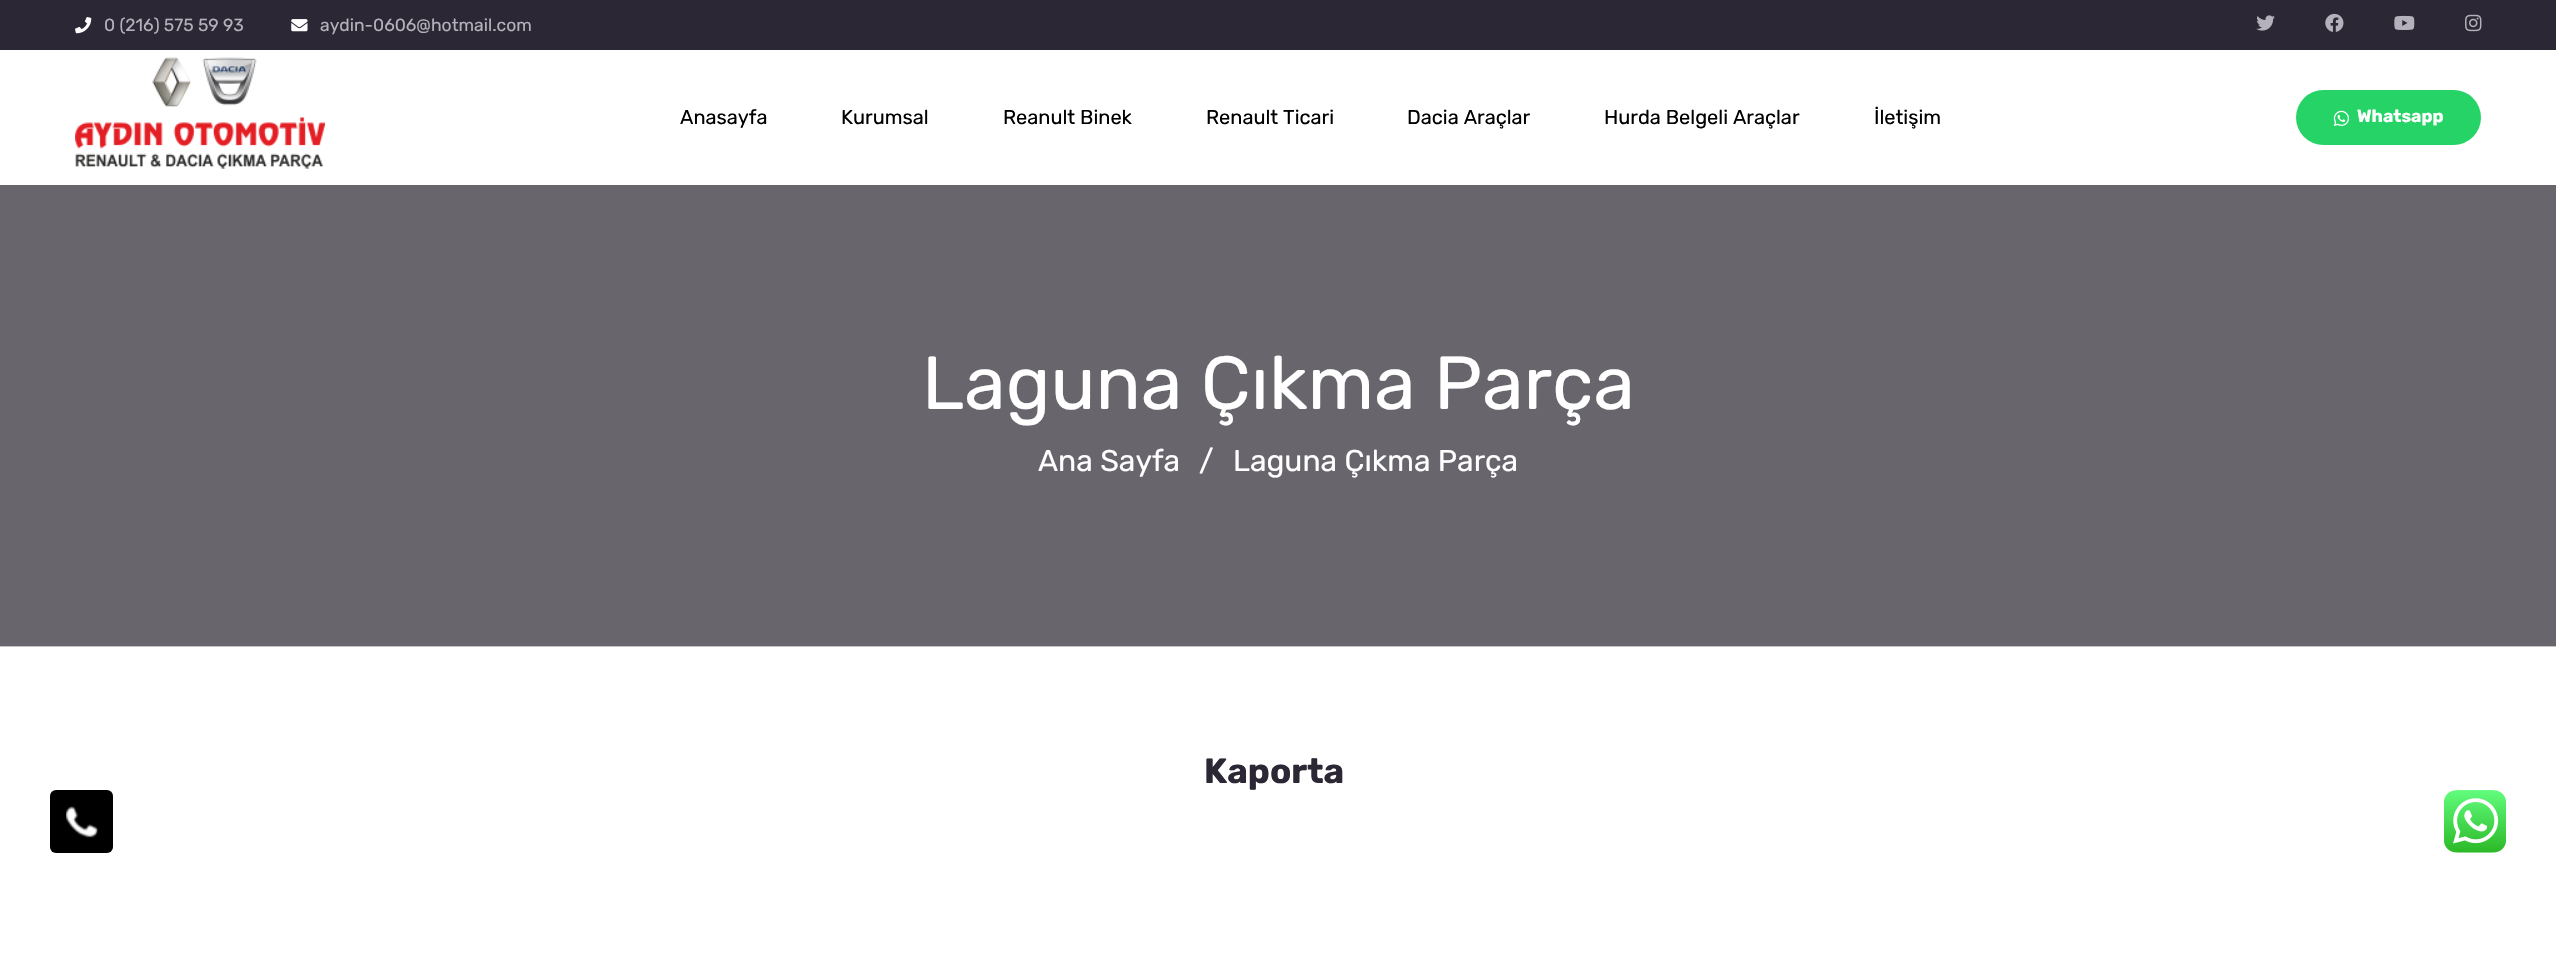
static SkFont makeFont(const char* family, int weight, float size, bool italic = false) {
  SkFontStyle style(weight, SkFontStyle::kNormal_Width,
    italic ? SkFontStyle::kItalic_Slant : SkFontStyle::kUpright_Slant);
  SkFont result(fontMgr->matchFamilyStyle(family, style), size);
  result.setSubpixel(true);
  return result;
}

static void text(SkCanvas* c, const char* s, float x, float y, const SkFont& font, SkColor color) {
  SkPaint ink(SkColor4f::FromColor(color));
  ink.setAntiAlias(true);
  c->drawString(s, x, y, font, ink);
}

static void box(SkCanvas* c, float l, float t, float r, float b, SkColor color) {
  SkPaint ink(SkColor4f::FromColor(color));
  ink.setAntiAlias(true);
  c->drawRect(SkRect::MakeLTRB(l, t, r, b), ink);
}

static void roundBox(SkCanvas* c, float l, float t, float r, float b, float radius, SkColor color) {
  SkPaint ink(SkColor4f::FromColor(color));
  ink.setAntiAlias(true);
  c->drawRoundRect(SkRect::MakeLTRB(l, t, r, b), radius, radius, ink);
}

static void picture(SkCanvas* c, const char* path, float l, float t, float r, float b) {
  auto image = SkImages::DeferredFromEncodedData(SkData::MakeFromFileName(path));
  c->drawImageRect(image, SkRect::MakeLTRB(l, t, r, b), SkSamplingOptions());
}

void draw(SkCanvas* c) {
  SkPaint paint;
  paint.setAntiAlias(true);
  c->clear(0xffffffff);
  box(c, 0, 0, 2556, 50, 0xff2c2734);
  picture(c, "img_01.png", 75, 17, 92, 34);
  SkFont face1 = makeFont("Rubik", 400, 17.5f);
  text(c, "0 (216) 575 59 93", 104, 31, face1, 0xffb5b1bc);
  picture(c, "img_02.png", 291, 19, 308, 32);
  text(c, "aydin-0606@hotmail.com", 320, 31, face1, 0xffb5b1bc);
  picture(c, "img_03.png", 2256, 15, 2275, 31);
  picture(c, "img_04.png", 2325, 13, 2344, 32);
  picture(c, "img_05.png", 2394, 15, 2415, 30);
  picture(c, "img_06.png", 2465, 14, 2482, 32);
  picture(c, "img_07.png", 75, 57, 325, 169);
  SkFont face2 = makeFont("Rubik", 400, 20);
  text(c, "Anasayfa", 680, 124, face2, 0xff000000);
  text(c, "Kurumsal", 841, 124, face2, 0xff000000);
  text(c, "Reanult Binek", 1003, 124, face2, 0xff000000);
  text(c, "Renault Ticari", 1206, 124, face2, 0xff000000);
  text(c, "Dacia Araçlar", 1407, 124, face2, 0xff000000);
  text(c, "Hurda Belgeli Araçlar", 1604, 124, face2, 0xff000000);
  text(c, "İletişim", 1874, 124, face2, 0xff000000);
  roundBox(c, 2296, 90, 2481, 145, 27.5f, 0xff25d366);
  picture(c, "img_08.png", 2333, 110, 2350, 126);
  SkFont face3 = makeFont("Rubik", 700, 17.5f);
  text(c, "Whatsapp", 2357, 122, face3, 0xffffffff);
  box(c, 0, 646, 2556, 647, 0xffc3c3c3);
  box(c, 0, 185, 2556, 646, 0xff68656c);
  SkFont face4 = makeFont("Rubik", 400, 75);
  text(c, "Laguna Çıkma Parça", 922, 409, face4, 0xffffffff);
  SkFont face5 = makeFont("Rubik", 400, 30);
  text(c, "Ana Sayfa", 1038, 471, face5, 0xffffffff);
  text(c, "/", 1199, 471, face5, 0xffffffff);
  text(c, "Laguna Çıkma Parça", 1233, 471, face5, 0xffffffff);
  SkFont face6 = makeFont("Rubik", 700, 35);
  text(c, "Kaporta", 1204, 783, face6, 0xff2c2734);
  roundBox(c, 50, 790, 113, 853, 6, 0xff000000);
  picture(c, "img_09.png", 66, 806, 98, 838);
  picture(c, "img_10.png", 2444, 790, 2506, 853);
}
